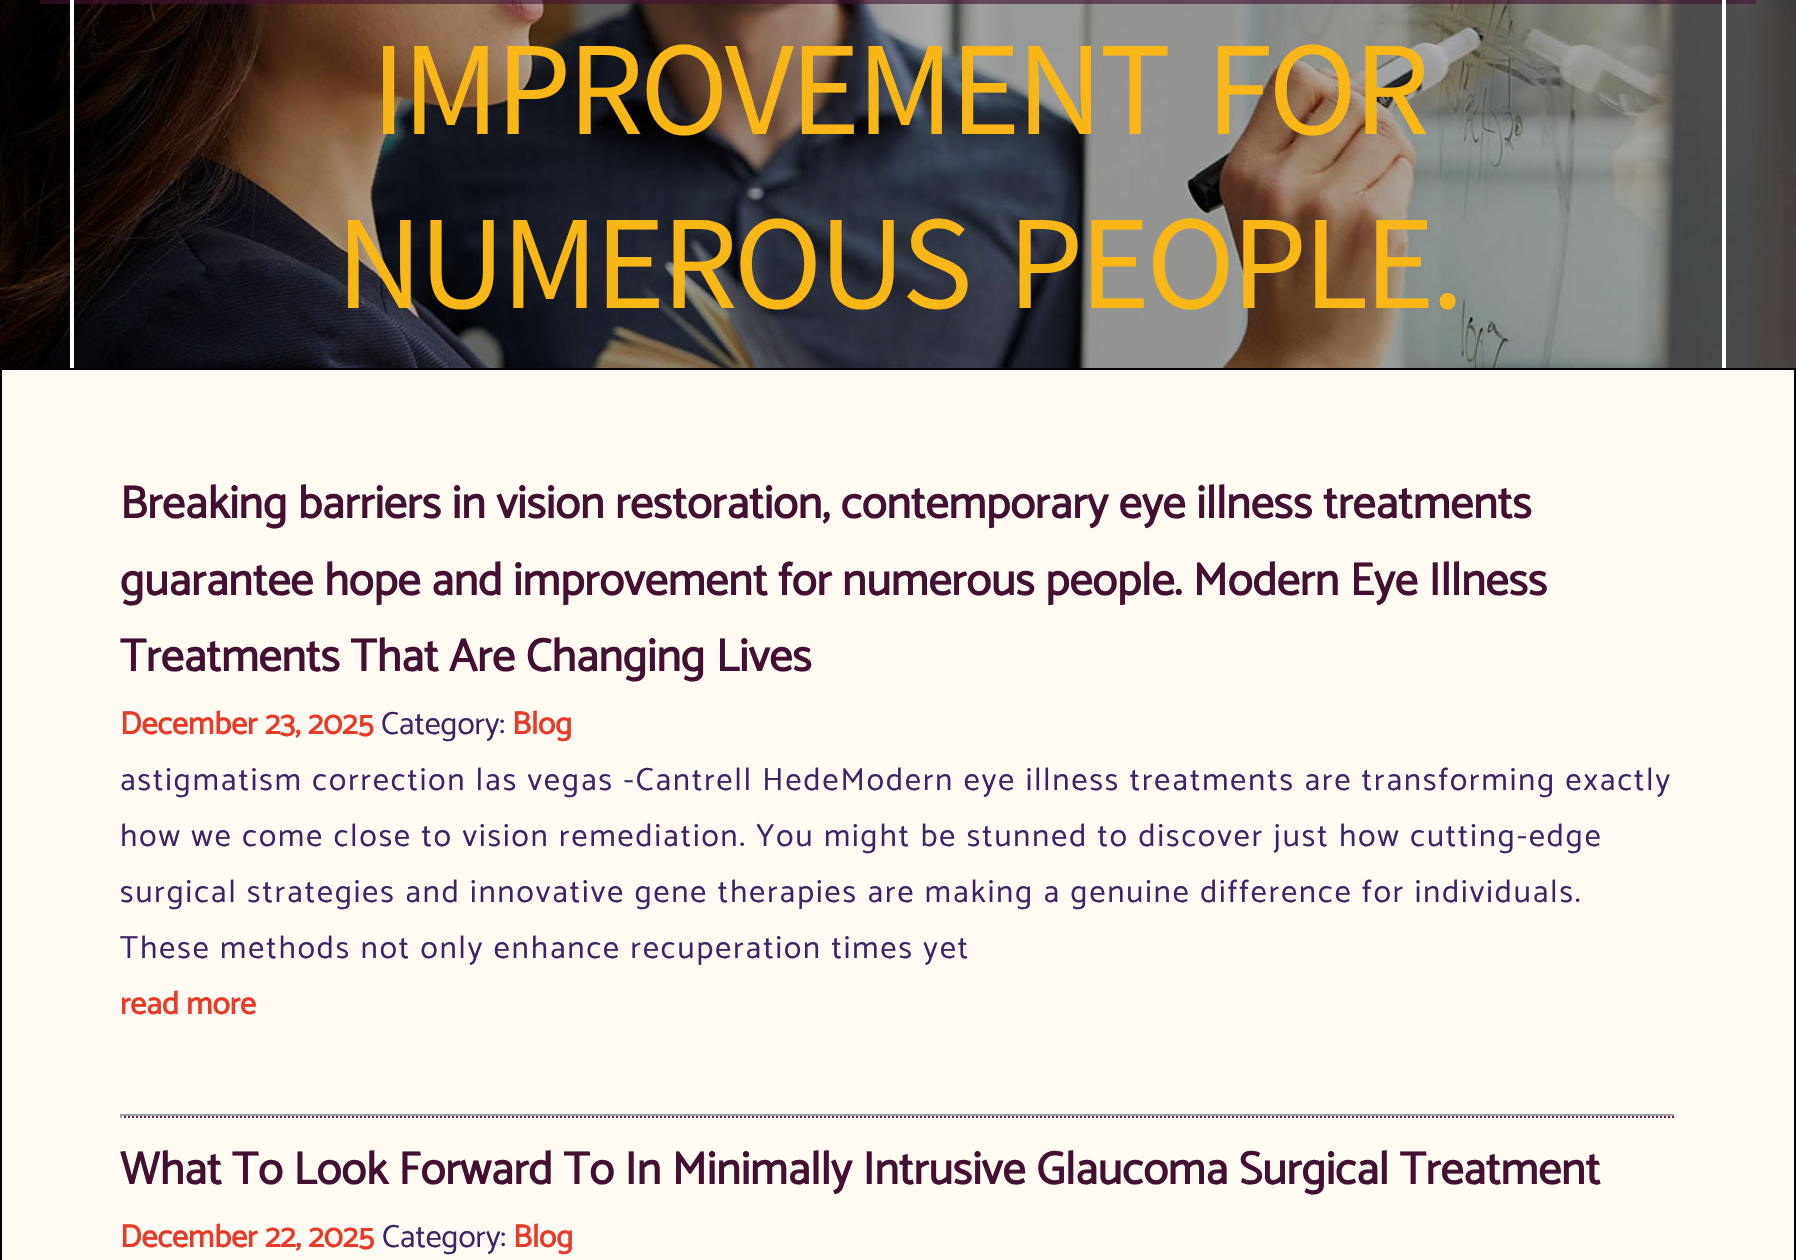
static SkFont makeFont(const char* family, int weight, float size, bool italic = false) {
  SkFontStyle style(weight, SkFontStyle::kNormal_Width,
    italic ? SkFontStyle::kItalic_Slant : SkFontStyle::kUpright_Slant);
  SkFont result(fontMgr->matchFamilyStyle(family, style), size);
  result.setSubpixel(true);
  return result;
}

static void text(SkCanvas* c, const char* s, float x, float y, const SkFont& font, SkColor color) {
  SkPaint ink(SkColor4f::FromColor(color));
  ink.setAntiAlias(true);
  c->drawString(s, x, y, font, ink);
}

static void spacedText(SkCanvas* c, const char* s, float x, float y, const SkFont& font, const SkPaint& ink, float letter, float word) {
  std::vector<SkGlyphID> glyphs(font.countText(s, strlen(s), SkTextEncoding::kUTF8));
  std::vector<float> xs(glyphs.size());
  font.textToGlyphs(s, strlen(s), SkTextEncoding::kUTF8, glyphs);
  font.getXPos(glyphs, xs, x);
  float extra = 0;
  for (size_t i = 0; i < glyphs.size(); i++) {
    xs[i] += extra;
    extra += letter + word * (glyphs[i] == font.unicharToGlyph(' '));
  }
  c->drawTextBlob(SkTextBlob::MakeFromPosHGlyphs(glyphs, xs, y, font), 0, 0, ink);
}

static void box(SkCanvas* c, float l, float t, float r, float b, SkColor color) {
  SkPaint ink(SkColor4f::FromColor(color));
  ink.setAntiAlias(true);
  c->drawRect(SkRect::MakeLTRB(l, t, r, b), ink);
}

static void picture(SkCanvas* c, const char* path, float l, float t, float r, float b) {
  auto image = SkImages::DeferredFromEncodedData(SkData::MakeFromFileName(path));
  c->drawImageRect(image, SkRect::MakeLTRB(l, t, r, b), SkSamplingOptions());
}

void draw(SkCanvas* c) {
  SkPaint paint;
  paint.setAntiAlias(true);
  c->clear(0xffffffff);
  picture(c, "img_01.png", 0, 0, 1796, 368);
  box(c, 40, 0, 1756, 4, 0x99431031);
  paint.setStyle(SkPaint::kStroke_Style);
  paint.setStrokeWidth(4);
  paint.setColor(0xffffffff);
  c->drawRect(SkRect::MakeLTRB(72, -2, 1724, 874), paint);
  SkFont face1 = makeFont("Noto Sans SC", 100, 120);
  paint.setStyle(SkPaint::kFill_Style);
  paint.setColor(0xfff9b617);
  spacedText(c, "IMPROVEMENT FOR", 371, 134, face1, paint, -4, 16);
  spacedText(c, "NUMEROUS PEOPLE.", 336, 308, face1, paint, -4, 16);
  paint.setColor(0xfffffbf3);
  c->drawRect(SkRect::MakeLTRB(1, 369, 1795, 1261), paint);
  paint.setStyle(SkPaint::kStroke_Style);
  paint.setStrokeWidth(2);
  paint.setColor(0xff000000);
  c->drawRect(SkRect::MakeLTRB(1, 369, 1795, 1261), paint);
  SkFont face2 = makeFont("Catamaran", 700, 46);
  text(c, "Breaking barriers in vision restoration, contemporary eye illness treatments", 120, 518, face2, 0xff431031);
  text(c, "guarantee hope and improvement for numerous people. Modern Eye Illness", 120, 595, face2, 0xff431031);
  text(c, "Treatments That Are Changing Lives", 120, 671, face2, 0xff431031);
  SkFont face3 = makeFont("Catamaran", 700, 32);
  text(c, "December 23, 2025", 120, 734, face3, 0xffe83a27);
  SkFont face4 = makeFont("Catamaran", 100, 32);
  text(c, "Category:", 381, 734, face4, 0xff3f2463);
  text(c, "Blog", 512, 734, face3, 0xffe83a27);
  paint.setStyle(SkPaint::kFill_Style);
  paint.setColor(0xff3f2463);
  spacedText(c, "astigmatism correction las vegas -Cantrell HedeModern eye illness treatments are transforming exactly", 120, 790, face4, paint, 2, 0);
  spacedText(c, "how we come close to vision remediation. You might be stunned to discover just how cutting-edge", 120, 846, face4, paint, 2, 0);
  spacedText(c, "surgical strategies and innovative gene therapies are making a genuine difference for individuals.", 120, 902, face4, paint, 2, 0);
  spacedText(c, "These methods not only enhance recuperation times yet", 120, 958, face4, paint, 2, 0);
  text(c, "read more", 120, 1014, face3, 0xffe83a27);
  box(c, 120, 1114, 1676, 1116, 0xff9f9f9f);
  box(c, 1674, 1114, 1676, 1118, 0xffeeeeee);
  paint.setStyle(SkPaint::kStroke_Style);
  paint.setColor(0xff6c194f);
  paint.setPathEffect(SkDashPathEffect::Make({{2, 2}}, 0));
  c->drawPath(SkPathBuilder().moveTo(120, 1117).lineTo(1676, 1117).detach(), paint);
  paint.setPathEffect(nullptr);
  box(c, 120, 1114, 122, 1118, 0xff9f9f9f);
  text(c, "What To Look Forward To In Minimally Intrusive Glaucoma Surgical Treatment", 120, 1184, face2, 0xff431031);
  text(c, "December 22, 2025", 120, 1247, face3, 0xffe83a27);
  text(c, "Category:", 382, 1247, face4, 0xff3f2463);
  text(c, "Blog", 513, 1247, face3, 0xffe83a27);
}
